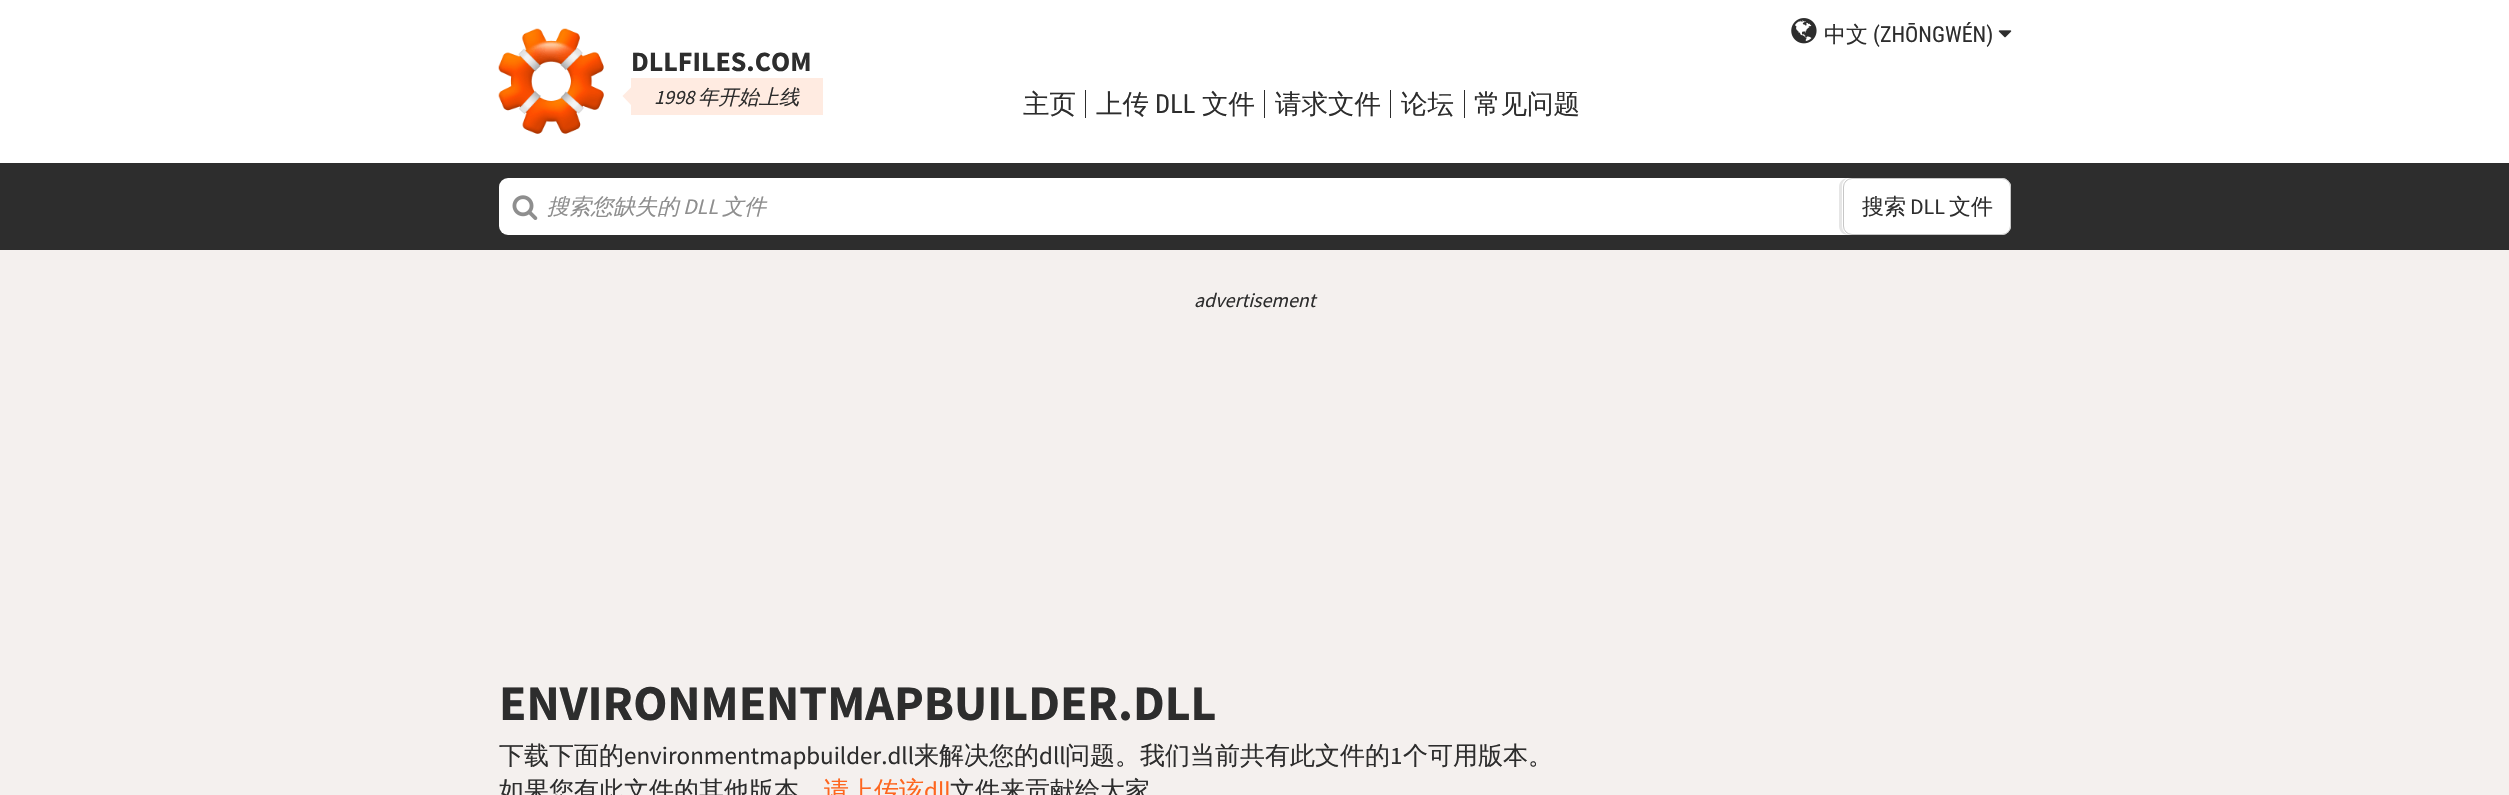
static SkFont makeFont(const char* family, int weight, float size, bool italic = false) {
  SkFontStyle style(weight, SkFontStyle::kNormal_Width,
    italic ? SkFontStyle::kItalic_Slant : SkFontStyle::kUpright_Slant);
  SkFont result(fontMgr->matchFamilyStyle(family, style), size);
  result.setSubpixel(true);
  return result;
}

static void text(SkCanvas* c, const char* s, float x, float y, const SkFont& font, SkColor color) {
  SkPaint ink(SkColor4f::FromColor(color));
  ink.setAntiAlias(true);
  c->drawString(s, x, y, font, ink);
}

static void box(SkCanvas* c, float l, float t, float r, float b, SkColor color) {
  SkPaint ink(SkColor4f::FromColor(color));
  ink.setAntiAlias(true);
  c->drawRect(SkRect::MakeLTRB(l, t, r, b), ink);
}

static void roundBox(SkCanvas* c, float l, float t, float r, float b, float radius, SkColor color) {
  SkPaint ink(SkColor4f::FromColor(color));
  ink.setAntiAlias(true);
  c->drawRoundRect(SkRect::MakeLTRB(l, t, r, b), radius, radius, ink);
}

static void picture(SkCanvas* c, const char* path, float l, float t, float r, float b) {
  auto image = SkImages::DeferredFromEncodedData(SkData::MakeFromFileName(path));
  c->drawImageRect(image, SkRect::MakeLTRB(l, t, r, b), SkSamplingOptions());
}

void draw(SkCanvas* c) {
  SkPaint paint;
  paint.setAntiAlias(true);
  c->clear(0xffffffff);
  picture(c, "img_01.png", 498, 28, 604, 134);
  SkFont face1 = makeFont("Source Sans Pro", 700, 28);
  text(c, "DLL‑FILES.COM", 631, 71, face1, 0xff2d2d2d);
  box(c, 631, 78, 823, 115, 0xffffebe1);
  paint.setColor(0xffffebe1);
  c->drawPath(SkPathBuilder().moveTo(631, 87.5f).lineTo(631, 105).lineTo(622.5f, 96).close().detach(), paint);
  SkFont face2 = makeFont("Source Sans Pro", 400, 20.25f, true);
  text(c, "1998", 654, 104, face2, 0xff2d2d2d);
  SkFont face3 = makeFont("WenQuanYi Zen Hei", 500, 20.25f, true);
  text(c, "年开始上线", 698, 104, face3, 0xff2d2d2d);
  picture(c, "img_02.png", 1791, 18, 1817, 44);
  SkFont face4 = makeFont("WenQuanYi Zen Hei", 500, 22);
  text(c, "中文", 1824, 42, face4, 0xff2d2d2d);
  SkFont face5 = makeFont("Roboto Condensed", 400, 22);
  text(c, "(ZHŌNGWÉN)", 1873, 42, face5, 0xff2d2d2d);
  picture(c, "img_03.png", 1998, 30, 2012, 38);
  box(c, 1085, 90, 1086, 118, 0xff2d2d2d);
  SkFont face6 = makeFont("WenQuanYi Zen Hei", 500, 26.5f);
  text(c, "主页", 1023, 113, face6, 0xff2d2d2d);
  box(c, 1264, 90, 1265, 118, 0xff2d2d2d);
  text(c, "上传", 1096, 113, face6, 0xff2d2d2d);
  SkFont face7 = makeFont("Roboto Condensed", 400, 26.5f);
  text(c, "DLL", 1155, 113, face7, 0xff2d2d2d);
  text(c, "文件", 1202, 113, face6, 0xff2d2d2d);
  box(c, 1390, 90, 1391, 118, 0xff2d2d2d);
  text(c, "请求文件", 1275, 113, face6, 0xff2d2d2d);
  box(c, 1464, 90, 1465, 118, 0xff2d2d2d);
  text(c, "论坛", 1401, 113, face6, 0xff2d2d2d);
  text(c, "常见问题", 1474, 113, face6, 0xff2d2d2d);
  box(c, 0, 163, 2509, 250, 0xff2d2d2d);
  roundBox(c, 499, 178, 2011, 235, 9, 0xffffffff);
  picture(c, "img_04.png", 512, 195, 538, 220);
  SkFont face8 = makeFont("WenQuanYi Zen Hei", 500, 22, true);
  text(c, "搜索您缺失的", 547, 214, face8, 0xff8e8e8e);
  SkFont face9 = makeFont("Source Sans Pro", 400, 22, true);
  text(c, "DLL", 683, 214, face9, 0xff8e8e8e);
  text(c, "文件", 722, 214, face8, 0xff8e8e8e);
  paint.setColor(0xffe6e6e6);
  c->drawPath(SkPathBuilder().moveTo(1848, 178).cubicTo(1843, 178, 1839, 182, 1839, 187).lineTo(1839, 226).cubicTo(1839, 231, 1843, 235, 1848, 235).lineTo(1851, 235).cubicTo(1846, 235, 1842, 231, 1842, 226).lineTo(1842, 186).cubicTo(1842, 182, 1845, 179, 1848, 178).close().detach(), paint);
  paint.setColor(0xffffffff);
  c->drawRoundRect(SkRect::MakeLTRB(1843.5f, 178.5f, 2010.5f, 234.5f), 8.5f, 8.5f, paint);
  paint.setStyle(SkPaint::kStroke_Style);
  paint.setStrokeWidth(1);
  paint.setColor(0xffc6c6c6);
  c->drawRoundRect(SkRect::MakeLTRB(1843.5f, 178.5f, 2010.5f, 234.5f), 8.5f, 8.5f, paint);
  text(c, "搜索", 1862, 214, face4, 0xff2d2d2d);
  SkFont face10 = makeFont("Source Sans Pro", 400, 22);
  text(c, "DLL", 1910, 214, face10, 0xff2d2d2d);
  text(c, "文件", 1949, 214, face4, 0xff2d2d2d);
  box(c, 0, 250, 2509, 795, 0xfff4f0ee);
  SkFont face11 = makeFont("Source Sans Pro", 400, 20, true);
  text(c, "advertisement", 1194, 307, face11, 0xff2d2d2d);
  SkFont face12 = makeFont("Source Sans Pro", 700, 50);
  text(c, "ENVIRONMENTMAPBUILDER.DLL", 499, 720, face12, 0xff2d2d2d);
  SkFont face13 = makeFont("WenQuanYi Zen Hei", 500, 25);
  text(c, "下载下面的", 499, 764, face13, 0xff2d2d2d);
  SkFont face14 = makeFont("Source Sans Pro", 400, 25);
  text(c, "environmentmapbuilder.dll", 624, 764, face14, 0xff2d2d2d);
  text(c, "来解决您的", 914, 764, face13, 0xff2d2d2d);
  text(c, "dll", 1039, 764, face14, 0xff2d2d2d);
  text(c, "问题。我们当前共有此文件的", 1065, 764, face13, 0xff2d2d2d);
  text(c, "1", 1390, 764, face14, 0xff2d2d2d);
  text(c, "个可用版本。", 1403, 764, face13, 0xff2d2d2d);
  text(c, "如果您有此文件的其他版本", 499, 799, face13, 0xff2d2d2d);
  text(c, "请上传该", 824, 799, face13, 0xfffe661f);
  text(c, "dll", 924, 799, face14, 0xfffe661f);
  text(c, "文件来贡献给大家", 950, 799, face13, 0xff2d2d2d);
}
